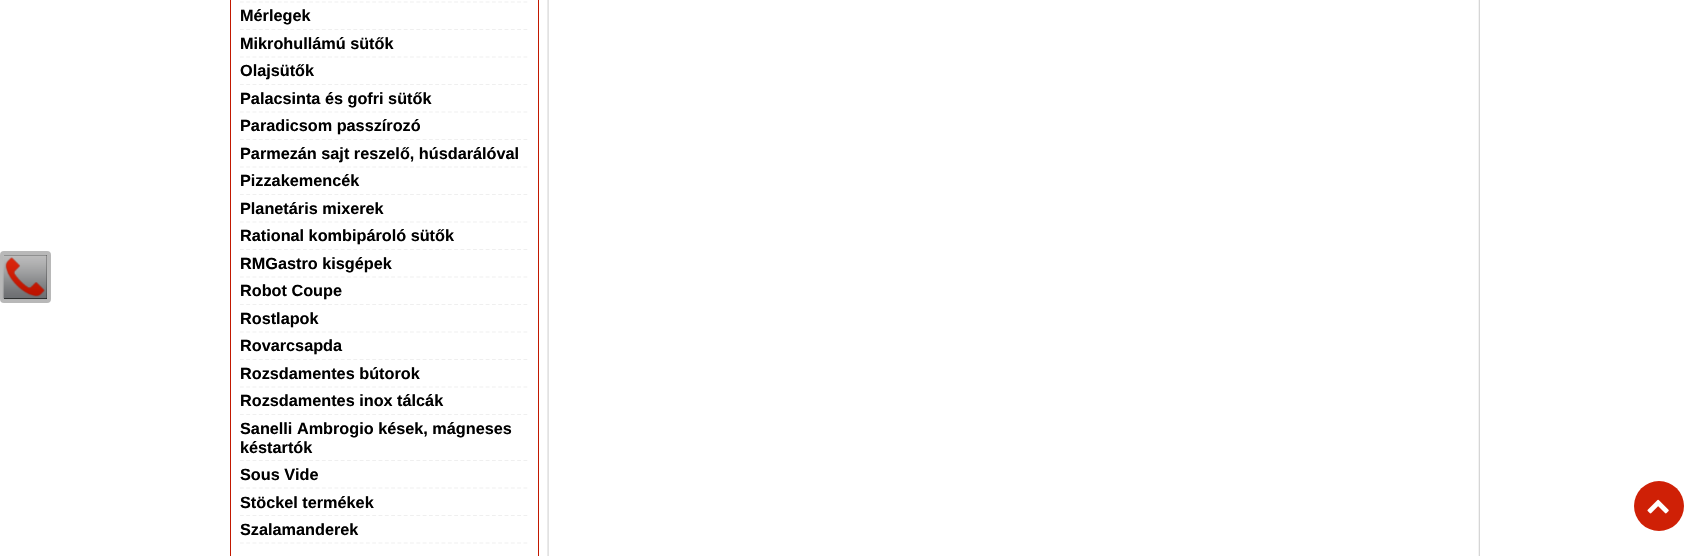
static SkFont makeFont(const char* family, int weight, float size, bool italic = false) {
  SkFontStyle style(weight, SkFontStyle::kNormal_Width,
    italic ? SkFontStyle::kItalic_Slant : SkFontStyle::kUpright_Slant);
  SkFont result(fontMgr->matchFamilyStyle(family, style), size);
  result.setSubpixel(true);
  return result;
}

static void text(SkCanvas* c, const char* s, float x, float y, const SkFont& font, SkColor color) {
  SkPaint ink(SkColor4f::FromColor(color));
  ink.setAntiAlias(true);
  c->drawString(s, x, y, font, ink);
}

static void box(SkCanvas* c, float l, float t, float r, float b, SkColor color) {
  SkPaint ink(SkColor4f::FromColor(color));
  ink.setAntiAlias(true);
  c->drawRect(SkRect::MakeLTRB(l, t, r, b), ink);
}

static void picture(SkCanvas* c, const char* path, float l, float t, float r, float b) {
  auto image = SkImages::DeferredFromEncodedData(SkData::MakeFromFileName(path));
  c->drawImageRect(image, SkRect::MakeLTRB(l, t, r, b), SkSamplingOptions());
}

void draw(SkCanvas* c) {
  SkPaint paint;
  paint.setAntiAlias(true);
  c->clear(0xffffffff);
  picture(c, "img_01.png", 450, 0, 1480, 556);
  box(c, 538, 0, 539, 556, 0xffc21800);
  box(c, 230, 0, 231, 556, 0xffc21800);
  paint.setStyle(SkPaint::kStroke_Style);
  paint.setStrokeWidth(1.2f);
  paint.setColor(0xffefefef);
  paint.setPathEffect(SkDashPathEffect::Make({{3.75f, 2.55f}}, 0));
  c->drawPath(SkPathBuilder().moveTo(240, 2).lineTo(527.5f, 2).detach(), paint);
  paint.setPathEffect(nullptr);
  paint.setPathEffect(SkDashPathEffect::Make({{3.75f, 2.55f}}, 0));
  c->drawPath(SkPathBuilder().moveTo(240, 29.5f).lineTo(527.5f, 29.5f).detach(), paint);
  paint.setPathEffect(nullptr);
  SkFont face1 = makeFont("Liberation Sans", 700, 16.25f);
  text(c, "Mérlegek", 240, 21, face1, 0xff000000);
  paint.setPathEffect(SkDashPathEffect::Make({{3.75f, 2.55f}}, 0));
  c->drawPath(SkPathBuilder().moveTo(240, 57).lineTo(527.5f, 57).detach(), paint);
  paint.setPathEffect(nullptr);
  text(c, "Mikrohullámú sütők", 240, 49, face1, 0xff000000);
  paint.setPathEffect(SkDashPathEffect::Make({{3.75f, 2.55f}}, 0));
  c->drawPath(SkPathBuilder().moveTo(240, 84.5f).lineTo(527.5f, 84.5f).detach(), paint);
  paint.setPathEffect(nullptr);
  text(c, "Olajsütők", 240, 76, face1, 0xff000000);
  paint.setPathEffect(SkDashPathEffect::Make({{3.75f, 2.55f}}, 0));
  c->drawPath(SkPathBuilder().moveTo(240, 112).lineTo(527.5f, 112).detach(), paint);
  paint.setPathEffect(nullptr);
  text(c, "Palacsinta és gofri sütők", 240, 104, face1, 0xff000000);
  paint.setPathEffect(SkDashPathEffect::Make({{3.75f, 2.55f}}, 0));
  c->drawPath(SkPathBuilder().moveTo(240, 139.5f).lineTo(527.5f, 139.5f).detach(), paint);
  paint.setPathEffect(nullptr);
  text(c, "Paradicsom passzírozó", 240, 131, face1, 0xff000000);
  paint.setPathEffect(SkDashPathEffect::Make({{3.75f, 2.55f}}, 0));
  c->drawPath(SkPathBuilder().moveTo(240, 167).lineTo(527.5f, 167).detach(), paint);
  paint.setPathEffect(nullptr);
  text(c, "Parmezán sajt reszelő, húsdarálóval", 240, 159, face1, 0xff000000);
  paint.setPathEffect(SkDashPathEffect::Make({{3.75f, 2.55f}}, 0));
  c->drawPath(SkPathBuilder().moveTo(240, 194.5f).lineTo(527.5f, 194.5f).detach(), paint);
  paint.setPathEffect(nullptr);
  text(c, "Pizzakemencék", 240, 186, face1, 0xff000000);
  paint.setPathEffect(SkDashPathEffect::Make({{3.75f, 2.55f}}, 0));
  c->drawPath(SkPathBuilder().moveTo(240, 222).lineTo(527.5f, 222).detach(), paint);
  paint.setPathEffect(nullptr);
  text(c, "Planetáris mixerek", 240, 214, face1, 0xff000000);
  paint.setPathEffect(SkDashPathEffect::Make({{3.75f, 2.55f}}, 0));
  c->drawPath(SkPathBuilder().moveTo(240, 249.5f).lineTo(527.5f, 249.5f).detach(), paint);
  paint.setPathEffect(nullptr);
  text(c, "Rational kombipároló sütők", 240, 241, face1, 0xff000000);
  paint.setPathEffect(SkDashPathEffect::Make({{3.75f, 2.55f}}, 0));
  c->drawPath(SkPathBuilder().moveTo(240, 277).lineTo(527.5f, 277).detach(), paint);
  paint.setPathEffect(nullptr);
  text(c, "RMGastro kisgépek", 240, 269, face1, 0xff000000);
  paint.setPathEffect(SkDashPathEffect::Make({{3.75f, 2.55f}}, 0));
  c->drawPath(SkPathBuilder().moveTo(240, 304.5f).lineTo(527.5f, 304.5f).detach(), paint);
  paint.setPathEffect(nullptr);
  text(c, "Robot Coupe", 240, 296, face1, 0xff000000);
  paint.setPathEffect(SkDashPathEffect::Make({{3.75f, 2.55f}}, 0));
  c->drawPath(SkPathBuilder().moveTo(240, 332).lineTo(527.5f, 332).detach(), paint);
  paint.setPathEffect(nullptr);
  text(c, "Rostlapok", 240, 324, face1, 0xff000000);
  paint.setPathEffect(SkDashPathEffect::Make({{3.75f, 2.55f}}, 0));
  c->drawPath(SkPathBuilder().moveTo(240, 359.5f).lineTo(527.5f, 359.5f).detach(), paint);
  paint.setPathEffect(nullptr);
  text(c, "Rovarcsapda", 240, 351, face1, 0xff000000);
  paint.setPathEffect(SkDashPathEffect::Make({{3.75f, 2.55f}}, 0));
  c->drawPath(SkPathBuilder().moveTo(240, 387).lineTo(527.5f, 387).detach(), paint);
  paint.setPathEffect(nullptr);
  text(c, "Rozsdamentes bútorok", 240, 379, face1, 0xff000000);
  paint.setPathEffect(SkDashPathEffect::Make({{3.75f, 2.55f}}, 0));
  c->drawPath(SkPathBuilder().moveTo(240, 414.5f).lineTo(527.5f, 414.5f).detach(), paint);
  paint.setPathEffect(nullptr);
  text(c, "Rozsdamentes inox tálcák", 240, 406, face1, 0xff000000);
  paint.setPathEffect(SkDashPathEffect::Make({{3.75f, 2.55f}}, 0));
  c->drawPath(SkPathBuilder().moveTo(240, 460.5f).lineTo(527.5f, 460.5f).detach(), paint);
  paint.setPathEffect(nullptr);
  text(c, "Sanelli Ambrogio kések, mágneses", 240, 434, face1, 0xff000000);
  text(c, "késtartók", 240, 453, face1, 0xff000000);
  paint.setPathEffect(SkDashPathEffect::Make({{3.75f, 2.55f}}, 0));
  c->drawPath(SkPathBuilder().moveTo(240, 488).lineTo(527.5f, 488).detach(), paint);
  paint.setPathEffect(nullptr);
  text(c, "Sous Vide", 240, 480, face1, 0xff000000);
  paint.setPathEffect(SkDashPathEffect::Make({{3.75f, 2.55f}}, 0));
  c->drawPath(SkPathBuilder().moveTo(240, 515.5f).lineTo(527.5f, 515.5f).detach(), paint);
  paint.setPathEffect(nullptr);
  text(c, "Stöckel termékek", 240, 508, face1, 0xff000000);
  paint.setPathEffect(SkDashPathEffect::Make({{3.75f, 2.55f}}, 0));
  c->drawPath(SkPathBuilder().moveTo(240, 543).lineTo(527.5f, 543).detach(), paint);
  paint.setPathEffect(nullptr);
  text(c, "Szalamanderek", 240, 535, face1, 0xff000000);
  paint.setStyle(SkPaint::kFill_Style);
  paint.setColor(0xff000000);
  c->drawRoundRect(SkRect::MakeLTRB(2, 253, 49, 301), 2, 2, paint);
  paint.setStyle(SkPaint::kStroke_Style);
  paint.setStrokeWidth(4);
  paint.setColor(0xffb8b8b8);
  c->drawRoundRect(SkRect::MakeLTRB(2, 253, 49, 301), 2, 2, paint);
  picture(c, "img_02.png", 2, 255, 47, 300);
  paint.setStyle(SkPaint::kFill_Style);
  paint.setColor(0xffcf2006);
  c->drawCircle(1659, 506, 25, paint);
  picture(c, "img_03.png", 1647, 499, 1669, 514);
}
